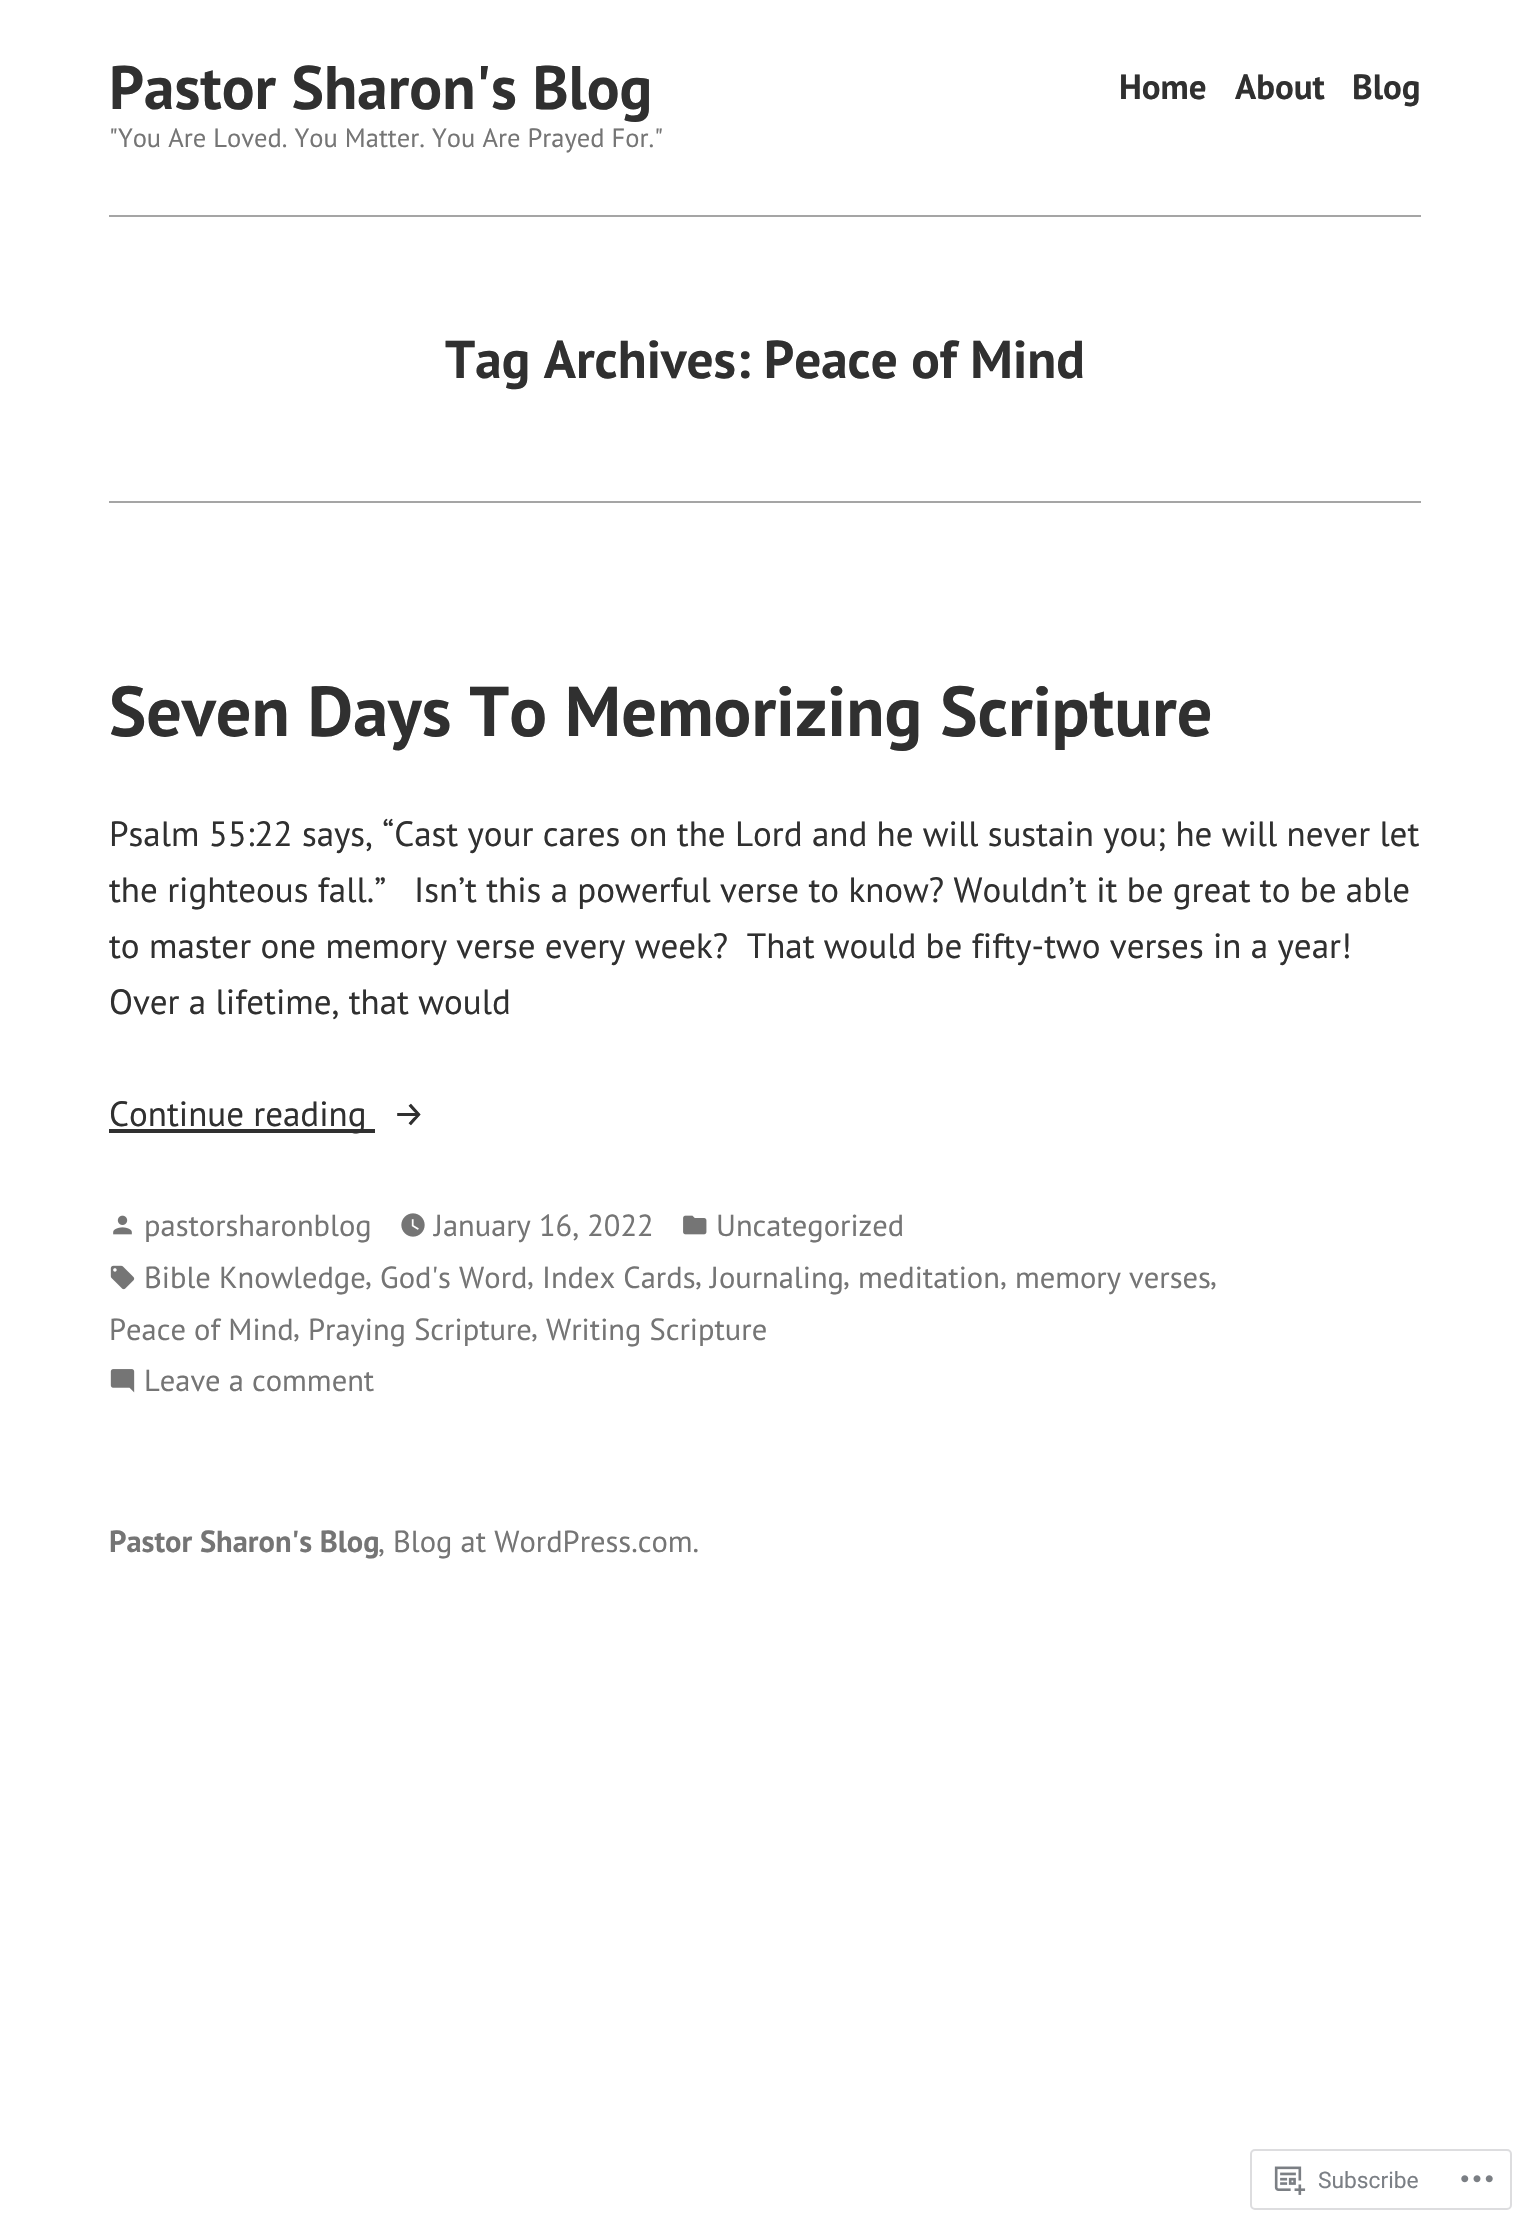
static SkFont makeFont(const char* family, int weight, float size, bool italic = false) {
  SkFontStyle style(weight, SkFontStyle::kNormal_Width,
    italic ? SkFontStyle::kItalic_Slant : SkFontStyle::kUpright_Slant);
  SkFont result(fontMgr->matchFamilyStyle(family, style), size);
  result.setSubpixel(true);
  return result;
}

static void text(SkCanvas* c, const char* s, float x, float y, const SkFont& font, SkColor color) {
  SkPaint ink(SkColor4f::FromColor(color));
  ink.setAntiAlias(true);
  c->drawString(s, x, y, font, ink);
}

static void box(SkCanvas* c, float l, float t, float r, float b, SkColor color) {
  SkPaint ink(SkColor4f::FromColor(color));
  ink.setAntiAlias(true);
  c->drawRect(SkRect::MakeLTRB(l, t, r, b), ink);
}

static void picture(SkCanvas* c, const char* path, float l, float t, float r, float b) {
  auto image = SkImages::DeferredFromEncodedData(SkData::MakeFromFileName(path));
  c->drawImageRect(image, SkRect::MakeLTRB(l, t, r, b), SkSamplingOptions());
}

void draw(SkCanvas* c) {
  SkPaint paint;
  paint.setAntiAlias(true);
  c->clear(0xffffffff);
  SkFont face1 = makeFont("PT Sans", 700, 61.25f);
  text(c, "Pastor Sharon's Blog", 109, 109, face1, 0xff303030);
  SkFont face2 = makeFont("PT Sans", 700, 35);
  text(c, "Home", 1119, 99, face2, 0xff303030);
  text(c, "About", 1235, 99, face2, 0xff303030);
  text(c, "Blog", 1352, 99, face2, 0xff303030);
  SkFont face3 = makeFont("PT Sans", 400, 26.5f);
  text(c, "\"You Are Loved. You Matter. You Are Prayed For.\"", 109, 147, face3, 0xff757575);
  box(c, 109, 215, 1421, 217, 0xffa5a5a5);
  SkFont face4 = makeFont("PT Sans", 700, 53.25f);
  text(c, "Tag Archives: Peace of Mind", 445, 378, face4, 0xff303030);
  box(c, 109, 501, 1421, 503, 0xffa5a5a5);
  SkFont face5 = makeFont("PT Sans", 700, 70.4f);
  text(c, "Seven Days To Memorizing Scripture", 109, 736, face5, 0xff303030);
  SkFont face6 = makeFont("PT Sans", 400, 35);
  text(c, "Psalm 55:22 says, “Cast your cares on the Lord and he will sustain you; he will never let", 109, 846, face6, 0xff303030);
  text(c, "the righteous fall.”   Isn’t this a powerful verse to know? Wouldn’t it be great to be able", 109, 902, face6, 0xff303030);
  text(c, "to master one memory verse every week?  That would be fifty-two verses in a year!", 109, 958, face6, 0xff303030);
  text(c, "Over a lifetime, that would", 109, 1014, face6, 0xff303030);
  box(c, 109, 1129, 375, 1133, 0xff303030);
  text(c, "Continue reading", 109, 1126, face6, 0xff303030);
  SkFont face7 = makeFont("Fira Sans", 400, 35);
  text(c, "→", 393, 1126, face7, 0xff303030);
  picture(c, "img_01.png", 113, 1215, 132, 1235);
  SkFont face8 = makeFont("PT Sans", 400, 30.5f);
  text(c, "pastorsharonblog", 144, 1236, face8, 0xff757575);
  picture(c, "img_02.png", 401, 1213, 425, 1237);
  text(c, "January 16, 2022", 434, 1236, face8, 0xff757575);
  picture(c, "img_03.png", 683, 1215, 707, 1235);
  text(c, "Uncategorized", 716, 1236, face8, 0xff757575);
  picture(c, "img_04.png", 110, 1265, 135, 1290);
  text(c, "Bible Knowledge", 144, 1288, face8, 0xff757575);
  text(c, ",", 365, 1285, face8, 0xff757575);
  text(c, "God's Word", 380, 1288, face8, 0xff757575);
  text(c, ",", 527, 1285, face8, 0xff757575);
  text(c, "Index Cards", 542, 1288, face8, 0xff757575);
  text(c, ",", 695, 1285, face8, 0xff757575);
  text(c, "Journaling", 710, 1288, face8, 0xff757575);
  text(c, ",", 843, 1285, face8, 0xff757575);
  text(c, "meditation", 858, 1288, face8, 0xff757575);
  text(c, ",", 1000, 1285, face8, 0xff757575);
  text(c, "memory verses", 1015, 1288, face8, 0xff757575);
  text(c, ",", 1210, 1285, face8, 0xff757575);
  text(c, "Peace of Mind", 109, 1340, face8, 0xff757575);
  text(c, ",", 293, 1337, face8, 0xff757575);
  text(c, "Praying Scripture", 308, 1340, face8, 0xff757575);
  text(c, ",", 531, 1337, face8, 0xff757575);
  text(c, "Writing Scripture", 546, 1340, face8, 0xff757575);
  picture(c, "img_05.png", 110, 1369, 135, 1393);
  text(c, "Leave a comment", 144, 1391, face8, 0xff757575);
  SkFont face9 = makeFont("PT Sans", 700, 30.5f);
  text(c, "Pastor Sharon's Blog", 109, 1552, face9, 0xff757575);
  text(c, ", Blog at WordPress.com.", 378, 1552, face8, 0xff757575);
  paint.setStyle(SkPaint::kStroke_Style);
  paint.setStrokeWidth(2);
  paint.setColor(0xffdddddf);
  c->drawRoundRect(SkRect::MakeLTRB(1251, 2150, 1511, 2209), 4, 4, paint);
  picture(c, "img_06.png", 1274, 2166, 1306, 2195);
  SkFont face10 = makeFont("Roboto", 400, 22.75f);
  text(c, "Subscribe", 1318, 2188, face10, 0xff7b7f85);
  picture(c, "img_07.png", 1461, 2175, 1493, 2183);
}
